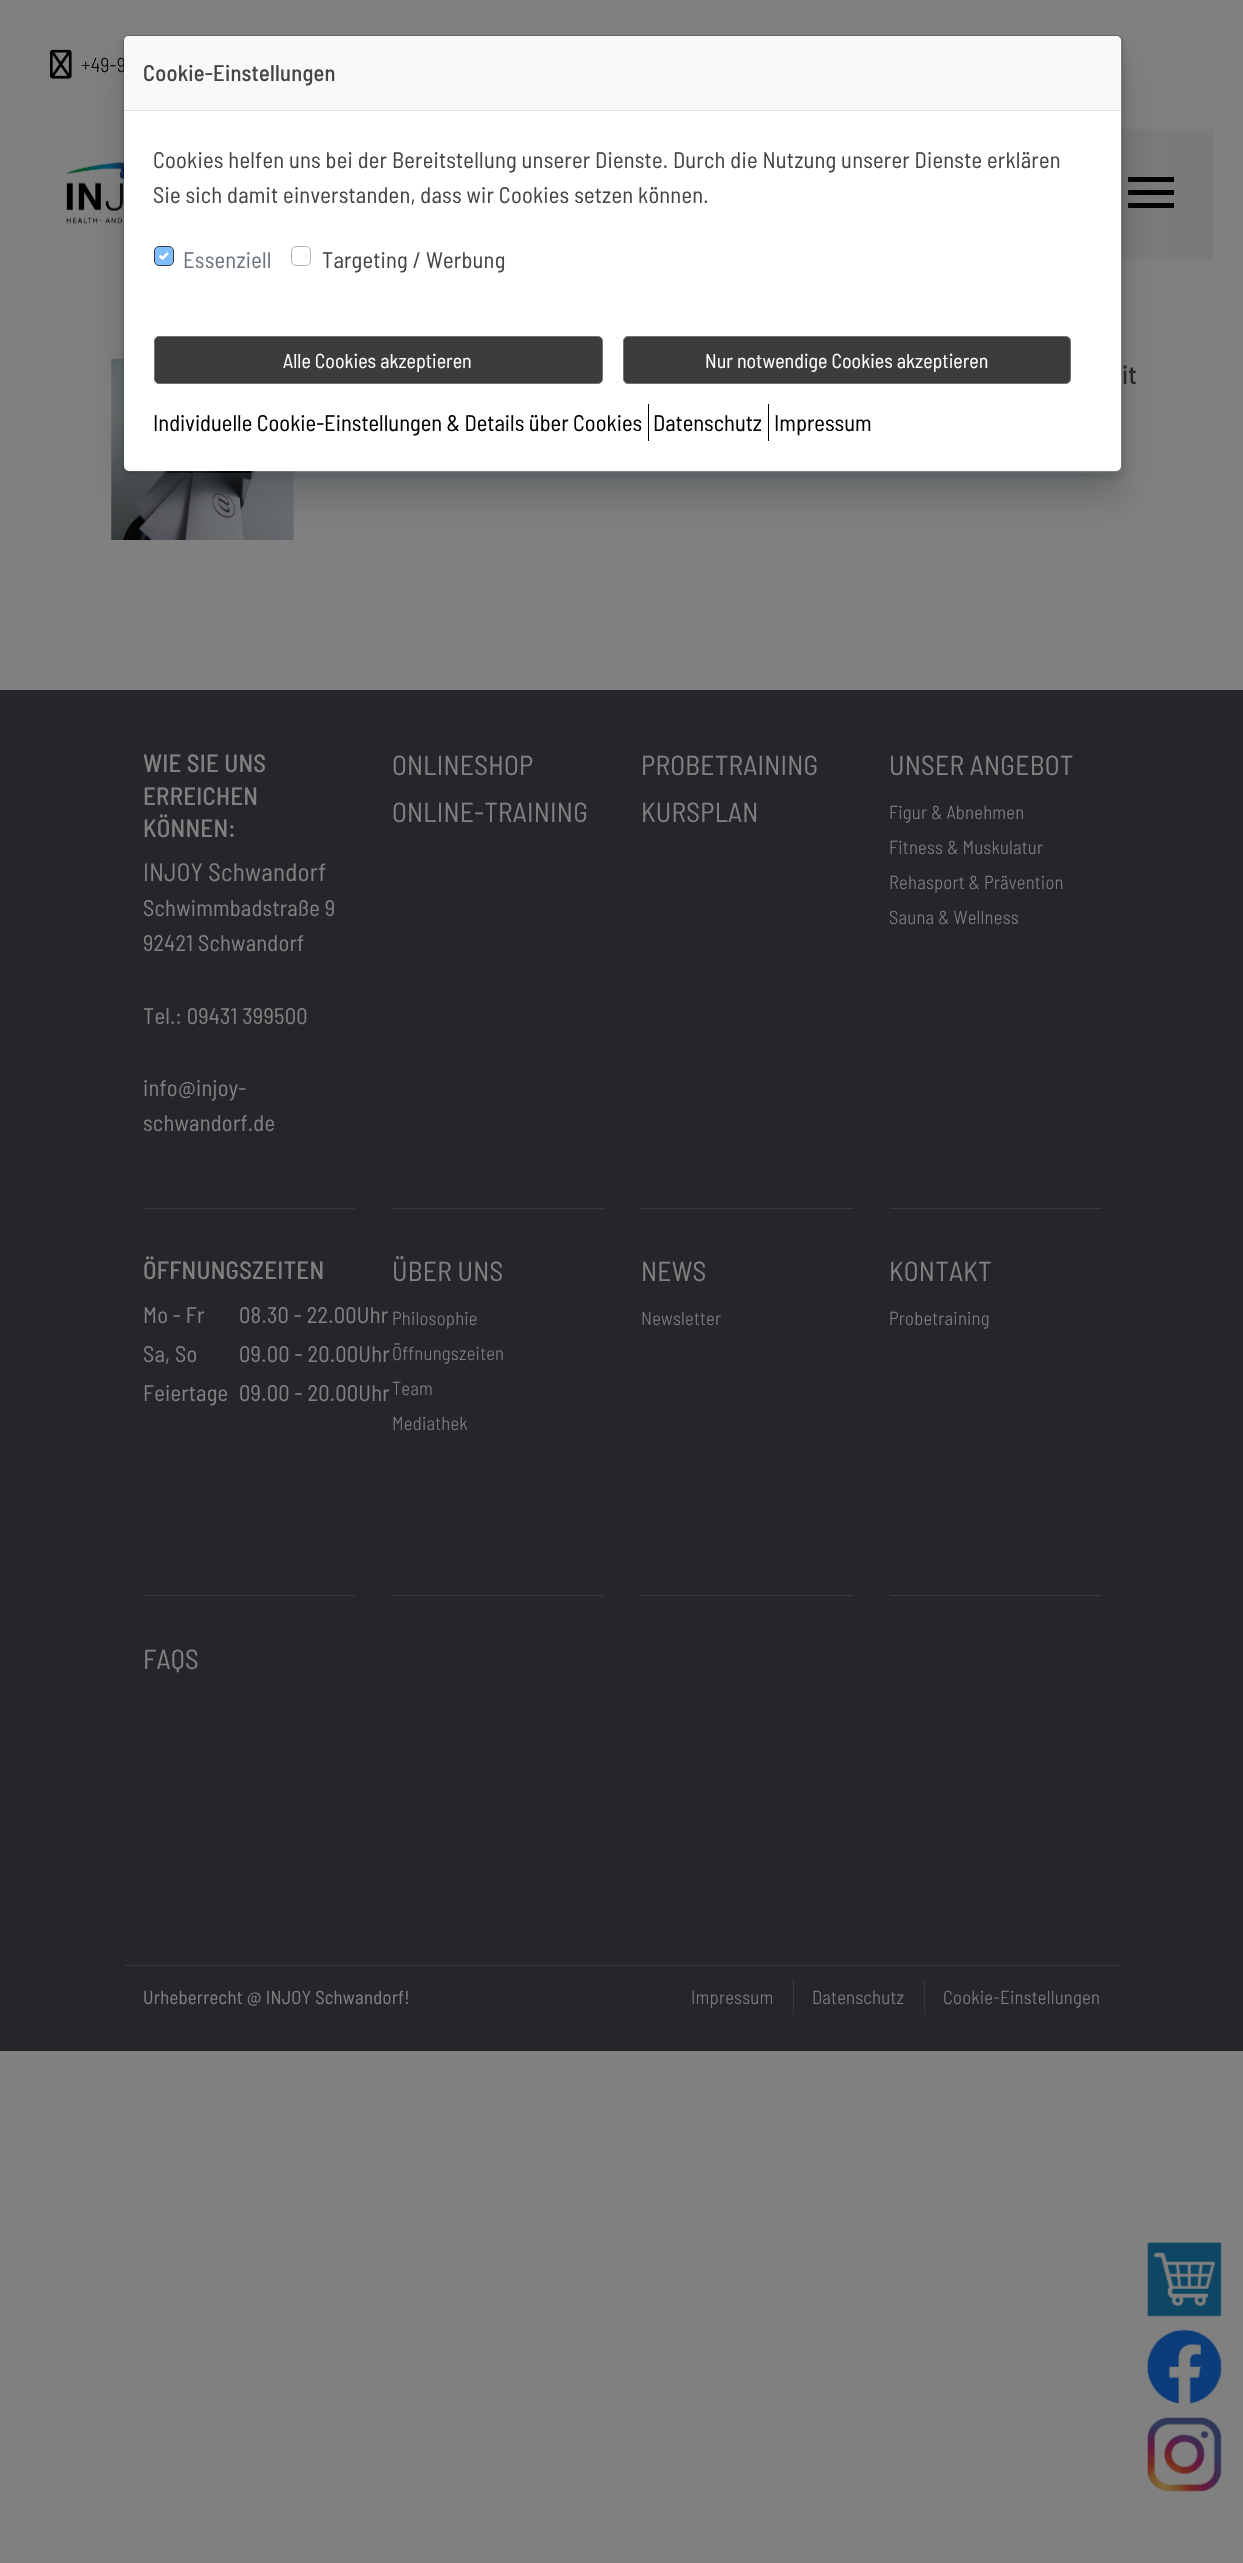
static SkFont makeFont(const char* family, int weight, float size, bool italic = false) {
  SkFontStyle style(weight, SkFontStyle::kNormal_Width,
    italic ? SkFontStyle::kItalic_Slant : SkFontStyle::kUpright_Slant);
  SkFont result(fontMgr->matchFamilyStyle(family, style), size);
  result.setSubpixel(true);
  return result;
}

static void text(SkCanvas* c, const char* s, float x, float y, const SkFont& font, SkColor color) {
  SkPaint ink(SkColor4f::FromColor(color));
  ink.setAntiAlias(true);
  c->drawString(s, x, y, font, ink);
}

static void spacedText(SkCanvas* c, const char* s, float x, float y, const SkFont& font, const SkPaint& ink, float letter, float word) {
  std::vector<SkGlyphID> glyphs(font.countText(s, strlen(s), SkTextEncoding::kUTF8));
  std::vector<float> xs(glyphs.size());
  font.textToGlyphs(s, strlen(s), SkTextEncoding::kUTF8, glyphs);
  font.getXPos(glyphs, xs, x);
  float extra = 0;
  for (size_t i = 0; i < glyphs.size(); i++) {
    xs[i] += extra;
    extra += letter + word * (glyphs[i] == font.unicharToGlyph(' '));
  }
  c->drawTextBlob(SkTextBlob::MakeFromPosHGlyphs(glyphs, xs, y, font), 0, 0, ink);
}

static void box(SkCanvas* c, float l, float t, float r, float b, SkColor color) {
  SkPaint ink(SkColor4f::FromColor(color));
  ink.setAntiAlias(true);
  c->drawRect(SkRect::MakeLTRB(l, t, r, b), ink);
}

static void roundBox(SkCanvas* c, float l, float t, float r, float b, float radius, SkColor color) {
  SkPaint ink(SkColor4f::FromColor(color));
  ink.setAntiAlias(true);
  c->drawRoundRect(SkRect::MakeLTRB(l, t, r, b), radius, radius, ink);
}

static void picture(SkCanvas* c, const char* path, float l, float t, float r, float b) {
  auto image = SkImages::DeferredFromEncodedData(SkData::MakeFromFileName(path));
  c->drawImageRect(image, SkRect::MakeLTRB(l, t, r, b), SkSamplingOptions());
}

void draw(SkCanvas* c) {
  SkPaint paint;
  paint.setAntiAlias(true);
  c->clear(0xff808080);
  picture(c, "img_01.png", 50, 49, 72, 79);
  SkFont face1 = makeFont("Barlow Semi Condensed", 300, 20);
  paint.setColor(0xff000000);
  spacedText(c, "+49-9", 81, 72, face1, paint, 0.22f, 0);
  box(c, 1121, 129, 1213, 259, 0xff7b7979);
  picture(c, "img_02.png", 66, 161, 124, 224);
  c->drawPath(SkPathBuilder().moveTo(1128, 208).lineTo(1128, 203).lineTo(1174, 203).lineTo(1174, 208).close().moveTo(1128, 195).lineTo(1128, 190).lineTo(1174, 190).lineTo(1174, 195).close().moveTo(1128, 177).lineTo(1174, 177).lineTo(1174, 182).lineTo(1128, 182).close().detach(), paint);
  picture(c, "img_03.png", 111, 358, 294, 540);
  SkFont face2 = makeFont("Barlow Semi Condensed", 500, 26);
  paint.setColor(0xff232323);
  spacedText(c, "it", 1122, 384, face2, paint, 0.22f, 0);
  box(c, 0, 690, 1243, 2051, 0xff24262a);
  SkFont face3 = makeFont("Barlow Semi Condensed", 500, 25);
  paint.setColor(0xff808080);
  spacedText(c, "WIE SIE UNS", 143, 772, face3, paint, 0.22f, 0);
  spacedText(c, "ERREICHEN", 143, 805, face3, paint, 0.22f, 0);
  spacedText(c, "KÖNNEN:", 143, 837, face3, paint, 0.22f, 0);
  SkFont face4 = makeFont("Barlow Semi Condensed", 400, 25);
  spacedText(c, "INJOY Schwandorf", 143, 881, face4, paint, 0.22f, 0);
  SkFont face5 = makeFont("Barlow Semi Condensed", 400, 22.5f);
  spacedText(c, "Schwimmbadstraße 9", 143, 916, face5, paint, 0.22f, 0);
  spacedText(c, "92421 Schwandorf", 143, 951, face5, paint, 0.22f, 0);
  spacedText(c, "Tel.: 09431 399500", 143, 1024, face5, paint, 0.22f, 0);
  spacedText(c, "info@injoy-", 143, 1096, face5, paint, 0.22f, 0);
  spacedText(c, "schwandorf.de", 143, 1131, face5, paint, 0.22f, 0);
  SkFont face6 = makeFont("Barlow Semi Condensed", 400, 27.5f);
  spacedText(c, "ONLINESHOP", 392, 775, face6, paint, 0.22f, 0);
  spacedText(c, "ONLINE-TRAINING", 392, 822, face6, paint, 0.22f, 0);
  spacedText(c, "PROBETRAINING", 641, 775, face6, paint, 0.22f, 0);
  spacedText(c, "KURSPLAN", 641, 822, face6, paint, 0.22f, 0);
  spacedText(c, "UNSER ANGEBOT", 889, 775, face6, paint, 0.22f, 0);
  SkFont face7 = makeFont("Barlow Semi Condensed", 300, 18.75f);
  spacedText(c, "Figur & Abnehmen", 889, 819, face7, paint, 0.22f, 0);
  spacedText(c, "Fitness & Muskulatur", 889, 854, face7, paint, 0.22f, 0);
  spacedText(c, "Rehasport & Prävention", 889, 889, face7, paint, 0.22f, 0);
  spacedText(c, "Sauna & Wellness", 889, 924, face7, paint, 0.22f, 0);
  box(c, 144, 1208, 355, 1209, 0xff37383b);
  box(c, 393, 1208, 604, 1209, 0xff37383b);
  box(c, 641, 1208, 853, 1209, 0xff37383b);
  box(c, 890, 1208, 1101, 1209, 0xff37383b);
  spacedText(c, "ÖFFNUNGSZEITEN", 143, 1279, face3, paint, 0.22f, 0);
  spacedText(c, "Mo - Fr", 143, 1323, face5, paint, 0.22f, 0);
  spacedText(c, "08.30 - 22.00Uhr", 239, 1323, face5, paint, 0.22f, 0);
  spacedText(c, "Sa, So", 143, 1362, face5, paint, 0.22f, 0);
  spacedText(c, "09.00 - 20.00Uhr", 239, 1362, face5, paint, 0.22f, 0);
  spacedText(c, "Feiertage", 143, 1401, face5, paint, 0.22f, 0);
  spacedText(c, "09.00 - 20.00Uhr", 239, 1401, face5, paint, 0.22f, 0);
  spacedText(c, "ÜBER UNS", 392, 1281, face6, paint, 0.22f, 0);
  spacedText(c, "Philosophie", 392, 1325, face7, paint, 0.22f, 0);
  spacedText(c, "Öffnungszeiten", 392, 1360, face7, paint, 0.22f, 0);
  spacedText(c, "Team", 392, 1395, face7, paint, 0.22f, 0);
  spacedText(c, "Mediathek", 392, 1430, face7, paint, 0.22f, 0);
  spacedText(c, "NEWS", 641, 1281, face6, paint, 0.22f, 0);
  spacedText(c, "Newsletter", 641, 1325, face7, paint, 0.22f, 0);
  spacedText(c, "KONTAKT", 889, 1281, face6, paint, 0.22f, 0);
  spacedText(c, "Probetraining", 889, 1325, face7, paint, 0.22f, 0);
  box(c, 144, 1595, 355, 1596, 0xff37383b);
  box(c, 393, 1595, 604, 1596, 0xff37383b);
  box(c, 641, 1595, 853, 1596, 0xff37383b);
  box(c, 890, 1595, 1101, 1596, 0xff37383b);
  spacedText(c, "FAQS", 143, 1669, face6, paint, 0.22f, 0);
  box(c, 125, 1965, 1120, 1966, 0xff37383b);
  SkFont face8 = makeFont("Barlow Semi Condensed", 400, 18.75f);
  spacedText(c, "Urheberrecht @ INJOY Schwandorf!", 143, 2004, face8, paint, 0.22f, 0);
  box(c, 793, 1979, 794, 2014, 0xff37383b);
  spacedText(c, "Impressum", 691, 2004, face7, paint, 0.22f, 0);
  box(c, 924, 1979, 925, 2014, 0xff37383b);
  spacedText(c, "Datenschutz", 812, 2004, face7, paint, 0.22f, 0);
  spacedText(c, "Cookie-Einstellungen", 943, 2004, face7, paint, 0.22f, 0);
  picture(c, "img_04.png", 1147, 2242, 1222, 2317);
  picture(c, "img_05.png", 1147, 2329, 1222, 2404);
  picture(c, "img_06.png", 1147, 2417, 1222, 2492);
  c->save();
  c->clipPath(SkPathBuilder(SkPathFillType::kEvenOdd).moveTo(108, 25).lineTo(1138, 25).lineTo(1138, 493).lineTo(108, 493).close().moveTo(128, 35).lineTo(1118, 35).cubicTo(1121, 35, 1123, 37, 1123, 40).lineTo(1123, 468).cubicTo(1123, 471, 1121, 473, 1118, 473).lineTo(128, 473).cubicTo(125, 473, 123, 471, 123, 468).lineTo(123, 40).cubicTo(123, 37, 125, 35, 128, 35).close().detach(), true);
  paint.setColor(0x4d343a40);
  paint.setMaskFilter(SkMaskFilter::MakeBlur(kNormal_SkBlurStyle, 4.5f));
  c->drawRoundRect(SkRect::MakeLTRB(123, 40, 1123, 478), 5, 5, paint);
  paint.setMaskFilter(nullptr);
  c->restore();
  c->save();
  c->clipPath(SkPathBuilder(SkPathFillType::kEvenOdd).moveTo(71, 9).lineTo(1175, 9).lineTo(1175, 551).lineTo(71, 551).close().moveTo(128, 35).lineTo(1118, 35).cubicTo(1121, 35, 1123, 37, 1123, 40).lineTo(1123, 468).cubicTo(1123, 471, 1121, 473, 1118, 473).lineTo(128, 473).cubicTo(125, 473, 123, 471, 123, 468).lineTo(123, 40).cubicTo(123, 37, 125, 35, 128, 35).close().detach(), true);
  paint.setMaskFilter(SkMaskFilter::MakeBlur(kNormal_SkBlurStyle, 17));
  c->drawRoundRect(SkRect::MakeLTRB(123, 61, 1123, 499), 5, 5, paint);
  paint.setMaskFilter(nullptr);
  c->restore();
  roundBox(c, 124, 36, 1121, 471, 5, 0xffffffff);
  paint.setStyle(SkPaint::kStroke_Style);
  paint.setStrokeWidth(1);
  paint.setColor(0x33000000);
  c->drawRoundRect(SkRect::MakeLTRB(123.5f, 35.5f, 1122.5f, 472.5f), 5.5f, 5.5f, paint);
  paint.setStyle(SkPaint::kFill_Style);
  paint.setColor(0xfff8f9fa);
  c->drawPath(SkPathBuilder().moveTo(129, 36).lineTo(1116, 36).cubicTo(1119, 36, 1121, 38, 1121, 41).lineTo(1121, 111).lineTo(124, 111).lineTo(124, 41).cubicTo(124, 38, 126, 36, 129, 36).close().detach(), paint);
  box(c, 124, 110, 1121, 111, 0xffdee2e6);
  SkFont face9 = makeFont("Barlow Semi Condensed", 500, 22.5f);
  paint.setColor(0xff454545);
  spacedText(c, "Cookie-Einstellungen", 143, 81, face9, paint, 0.22f, 0);
  spacedText(c, "Cookies helfen uns bei der Bereitstellung unserer Dienste. Durch die Nutzung unserer Dienste erklären", 153, 168, face5, paint, 0.22f, 0);
  spacedText(c, "Sie sich damit einverstanden, dass wir Cookies setzen können.", 153, 203, face5, paint, 0.22f, 0);
  paint.setColor(0xff80bdff);
  c->drawRoundRect(SkRect::MakeLTRB(154.5f, 246.5f, 173.5f, 265.5f), 4.5f, 4.5f, paint);
  paint.setStyle(SkPaint::kStroke_Style);
  paint.setColor(0xff3c3c3c);
  c->drawRoundRect(SkRect::MakeLTRB(154.5f, 246.5f, 173.5f, 265.5f), 4.5f, 4.5f, paint);
  picture(c, "img_07.png", 159, 252, 169, 261);
  paint.setStyle(SkPaint::kFill_Style);
  paint.setColor(0xff6c757d);
  spacedText(c, "Essenziell", 183, 268, face5, paint, 0.22f, 0);
  paint.setStyle(SkPaint::kStroke_Style);
  paint.setColor(0xffadb5bd);
  c->drawRoundRect(SkRect::MakeLTRB(291.5f, 246.5f, 310.5f, 265.5f), 4.5f, 4.5f, paint);
  paint.setStyle(SkPaint::kFill_Style);
  paint.setColor(0xff454545);
  spacedText(c, "Targeting / Werbung", 322, 268, face5, paint, 0.22f, 0);
  paint.setColor(0xff3c3c3c);
  c->drawRoundRect(SkRect::MakeLTRB(154.5f, 336.5f, 602.5f, 383.5f), 4.5f, 4.5f, paint);
  paint.setStyle(SkPaint::kStroke_Style);
  paint.setColor(0xff6c757d);
  c->drawRoundRect(SkRect::MakeLTRB(154.5f, 336.5f, 602.5f, 383.5f), 4.5f, 4.5f, paint);
  SkFont face10 = makeFont("Barlow Semi Condensed", 400, 20);
  text(c, "Alle Cookies akzeptieren", 283, 368, face10, 0xffffffff);
  paint.setStyle(SkPaint::kFill_Style);
  paint.setColor(0xff3c3c3c);
  c->drawRoundRect(SkRect::MakeLTRB(623.5f, 336.5f, 1070.5f, 383.5f), 4.5f, 4.5f, paint);
  paint.setStyle(SkPaint::kStroke_Style);
  paint.setColor(0xff6c757d);
  c->drawRoundRect(SkRect::MakeLTRB(623.5f, 336.5f, 1070.5f, 383.5f), 4.5f, 4.5f, paint);
  text(c, "Nur notwendige Cookies akzeptieren", 705, 368, face10, 0xffffffff);
  box(c, 648, 404, 649, 441, 0xff000000);
  text(c, "Individuelle Cookie-Einstellungen & Details über Cookies", 153, 431, face5, 0xff000000);
  box(c, 768, 404, 769, 441, 0xff000000);
  text(c, "Datenschutz", 653, 431, face5, 0xff000000);
  text(c, "Impressum", 774, 431, face5, 0xff000000);
}
